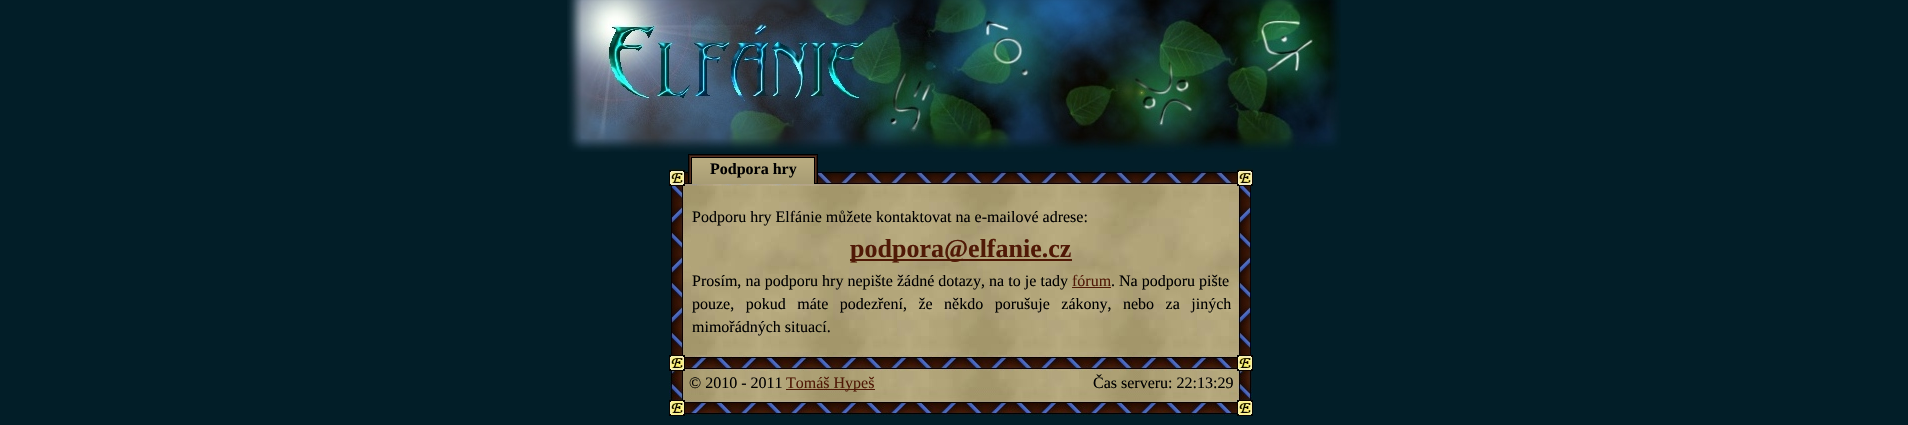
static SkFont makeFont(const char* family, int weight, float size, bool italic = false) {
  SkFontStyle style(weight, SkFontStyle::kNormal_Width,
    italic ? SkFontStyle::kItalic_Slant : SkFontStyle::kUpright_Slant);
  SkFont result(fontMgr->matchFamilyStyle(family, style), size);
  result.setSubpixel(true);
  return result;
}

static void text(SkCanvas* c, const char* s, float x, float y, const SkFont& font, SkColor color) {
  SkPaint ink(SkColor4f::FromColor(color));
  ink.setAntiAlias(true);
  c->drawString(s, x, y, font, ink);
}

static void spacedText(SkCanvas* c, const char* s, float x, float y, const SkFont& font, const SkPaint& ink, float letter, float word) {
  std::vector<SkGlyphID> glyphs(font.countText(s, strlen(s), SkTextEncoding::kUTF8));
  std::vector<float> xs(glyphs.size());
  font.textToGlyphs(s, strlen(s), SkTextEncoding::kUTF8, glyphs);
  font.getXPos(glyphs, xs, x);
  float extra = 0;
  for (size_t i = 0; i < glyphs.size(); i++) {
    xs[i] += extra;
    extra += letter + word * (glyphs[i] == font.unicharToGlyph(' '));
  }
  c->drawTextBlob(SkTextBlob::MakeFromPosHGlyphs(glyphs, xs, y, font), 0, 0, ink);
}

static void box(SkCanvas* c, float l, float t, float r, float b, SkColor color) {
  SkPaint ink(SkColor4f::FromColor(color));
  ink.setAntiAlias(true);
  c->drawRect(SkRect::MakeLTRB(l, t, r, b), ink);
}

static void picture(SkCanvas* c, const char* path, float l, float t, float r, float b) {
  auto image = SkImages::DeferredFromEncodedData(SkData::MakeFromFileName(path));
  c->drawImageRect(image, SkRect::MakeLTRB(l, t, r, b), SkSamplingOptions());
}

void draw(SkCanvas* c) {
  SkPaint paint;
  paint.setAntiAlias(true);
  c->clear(0xff021e28);
  picture(c, "img_01.png", 567, 0, 1341, 152);
  picture(c, "img_02.png", 671, 186, 1251, 355);
  picture(c, "img_03.png", 669, 154, 1253, 186);
  picture(c, "img_04.png", 688, 154, 818, 184);
  SkFont face1 = makeFont("Liberation Serif", 700, 16);
  text(c, "Podpora hry", 710, 174, face1, 0xff000000);
  SkFont face2 = makeFont("Liberation Serif", 400, 16);
  text(c, "Podporu hry Elfánie můžete kontaktovat na e-mailové adrese:", 692, 222, face2, 0xff000000);
  box(c, 850, 259, 1072, 261, 0xff501906);
  SkFont face3 = makeFont("Liberation Serif", 700, 26);
  text(c, "podpora@elfanie.cz", 850, 257, face3, 0xff501906);
  paint.setColor(0xff000000);
  spacedText(c, "Prosím, na podporu hry nepište žádné dotazy, na to je tady", 692, 286, face2, paint, 0, 0.1f);
  text(c, "fórum", 1072, 286, face2, 0xff501906);
  box(c, 1072, 287, 1111, 288, 0xff501906);
  text(c, ". Na podporu pište", 1111, 286, face2, 0xff000000);
  spacedText(c, "pouze, pokud máte podezření, že někdo porušuje zákony, nebo za jiných", 692, 309, face2, paint, 0, 7.5f);
  text(c, "mimořádných situací.", 692, 332, face2, 0xff000000);
  picture(c, "img_05.png", 669, 355, 1253, 416);
  text(c, "© 2010 - 2011", 689, 388, face2, 0xff000000);
  box(c, 786, 389, 875, 390, 0xff501906);
  text(c, "Tomáš Hypeš", 786, 388, face2, 0xff501906);
  text(c, "Čas serveru: 22:13:29", 1093, 388, face2, 0xff000000);
}
